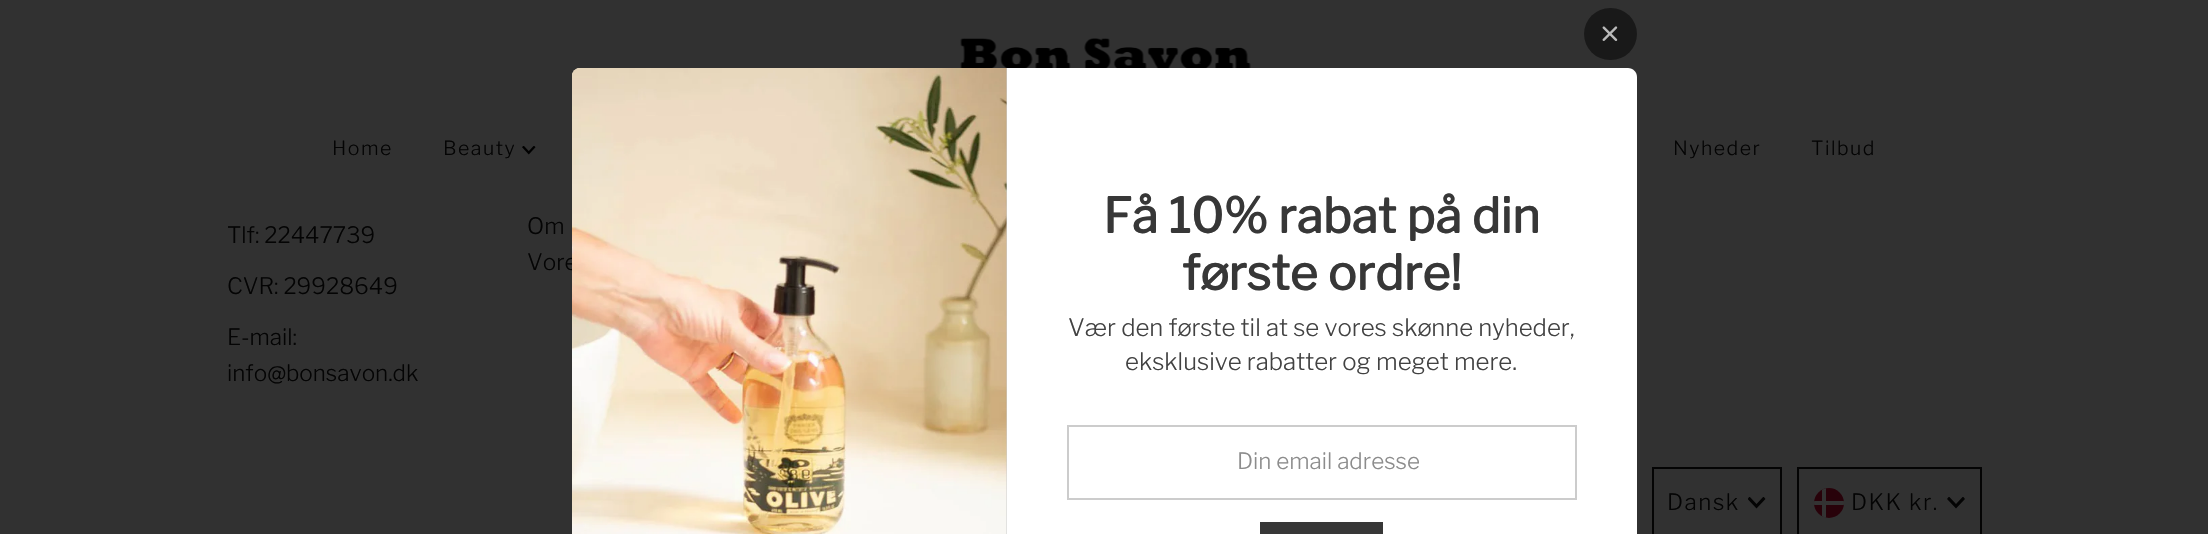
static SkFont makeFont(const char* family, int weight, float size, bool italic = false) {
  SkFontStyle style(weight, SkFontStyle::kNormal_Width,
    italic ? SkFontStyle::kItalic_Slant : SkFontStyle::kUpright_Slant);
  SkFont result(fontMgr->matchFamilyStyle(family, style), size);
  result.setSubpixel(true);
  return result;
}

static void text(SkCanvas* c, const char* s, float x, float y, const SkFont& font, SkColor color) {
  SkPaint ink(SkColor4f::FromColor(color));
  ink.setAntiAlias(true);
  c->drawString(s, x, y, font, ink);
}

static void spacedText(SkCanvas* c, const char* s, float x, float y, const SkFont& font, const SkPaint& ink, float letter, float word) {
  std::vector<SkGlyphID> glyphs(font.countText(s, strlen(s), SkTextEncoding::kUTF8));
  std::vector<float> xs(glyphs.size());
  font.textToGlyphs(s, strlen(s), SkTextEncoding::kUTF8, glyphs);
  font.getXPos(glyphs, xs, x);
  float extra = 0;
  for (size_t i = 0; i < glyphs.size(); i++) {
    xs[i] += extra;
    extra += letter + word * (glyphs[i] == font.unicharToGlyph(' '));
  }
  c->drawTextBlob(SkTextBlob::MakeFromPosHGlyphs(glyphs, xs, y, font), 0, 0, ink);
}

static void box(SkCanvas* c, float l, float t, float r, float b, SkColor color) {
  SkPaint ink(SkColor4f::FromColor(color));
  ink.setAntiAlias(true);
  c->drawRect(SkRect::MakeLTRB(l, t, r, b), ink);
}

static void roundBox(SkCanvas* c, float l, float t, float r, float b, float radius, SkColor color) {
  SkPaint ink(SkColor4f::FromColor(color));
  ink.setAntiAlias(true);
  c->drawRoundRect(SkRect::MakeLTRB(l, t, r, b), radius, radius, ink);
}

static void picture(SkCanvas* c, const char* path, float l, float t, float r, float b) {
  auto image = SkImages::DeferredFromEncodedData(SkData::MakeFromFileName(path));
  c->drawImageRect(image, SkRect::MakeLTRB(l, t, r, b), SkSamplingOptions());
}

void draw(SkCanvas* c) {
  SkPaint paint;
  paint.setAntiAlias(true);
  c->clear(0xff313131);
  picture(c, "img_01.png", 960, 38, 1251, 68);
  SkFont face1 = makeFont("Libre Franklin", 300, 19.5f);
  paint.setColor(0xff040404);
  spacedText(c, "Home", 332, 155, face1, paint, 1.5f, 0);
  spacedText(c, "Beauty", 443, 155, face1, paint, 1.5f, 0);
  picture(c, "img_02.png", 522, 146, 536, 155);
  spacedText(c, "Nyheder", 1673, 155, face1, paint, 1.5f, 0);
  spacedText(c, "Tilbud", 1811, 155, face1, paint, 1.5f, 0);
  SkFont face2 = makeFont("Libre Franklin", 300, 22.5f);
  text(c, "Tlf: 22447739", 227, 243, face2, 0xff040404);
  text(c, "CVR: 29928649", 227, 294, face2, 0xff040404);
  text(c, "E-mail:", 227, 345, face2, 0xff040404);
  text(c, "info@bonsavon.dk", 227, 381, face2, 0xff040404);
  text(c, "Om", 527, 234, face2, 0xff040404);
  text(c, "Vore", 527, 270, face2, 0xff040404);
  paint.setStyle(SkPaint::kStroke_Style);
  paint.setStrokeWidth(2);
  c->drawRect(SkRect::MakeLTRB(1653, 468, 1781, 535), paint);
  paint.setStyle(SkPaint::kFill_Style);
  spacedText(c, "Dansk", 1667, 510, face2, paint, 1.5f, 0);
  c->save();
  c->clipRect(SkRect::MakeLTRB(1748, 497, 1766, 509));
  c->drawPath(SkPathBuilder().moveTo(1763.5f, 496.5f).lineTo(1756.5f, 504).lineTo(1749.5f, 496.5f).lineTo(1747.5f, 499).lineTo(1756.5f, 508.5f).lineTo(1765.5f, 499).close().detach(), paint);
  c->restore();
  paint.setStyle(SkPaint::kStroke_Style);
  c->drawRect(SkRect::MakeLTRB(1798, 468, 1981, 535), paint);
  paint.setStyle(SkPaint::kFill_Style);
  paint.setColor(0xff28020a);
  c->drawCircle(1829, 503, 15, paint);
  c->save();
  c->clipPath(SkPathBuilder().moveTo(1829, 488).cubicTo(1837.5f, 488, 1844, 494.5f, 1844, 503).cubicTo(1844, 511.5f, 1837.5f, 518, 1829, 518).cubicTo(1820.5f, 518, 1814, 511.5f, 1814, 503).cubicTo(1814, 494.5f, 1820.5f, 488, 1829, 488).close().detach(), true);
  box(c, 1822, 488, 1826, 518, 0xff333333);
  box(c, 1814, 501, 1844, 505, 0xff333333);
  c->restore();
  paint.setColor(0xff040404);
  spacedText(c, "DKK kr.", 1851, 510, face2, paint, 1.5f, 0);
  c->save();
  c->clipRect(SkRect::MakeLTRB(1947, 497, 1965, 509));
  c->drawPath(SkPathBuilder().moveTo(1963, 496.5f).lineTo(1956, 504).lineTo(1949, 496.5f).lineTo(1947, 499).lineTo(1956, 508.5f).lineTo(1965, 499).close().detach(), paint);
  c->restore();
  paint.setColor(0xffffffff);
  c->drawPath(SkPathBuilder().moveTo(581, 68).lineTo(1628, 68).cubicTo(1633, 68, 1637, 72, 1637, 77).lineTo(1637, 534).lineTo(572, 534).lineTo(572, 77).cubicTo(572, 72, 576, 68, 581, 68).close().detach(), paint);
  c->save();
  c->clipPath(SkPathBuilder().moveTo(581, 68).lineTo(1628, 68).cubicTo(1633, 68, 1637, 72, 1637, 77).lineTo(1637, 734).cubicTo(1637, 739, 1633, 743, 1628, 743).lineTo(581, 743).cubicTo(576, 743, 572, 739, 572, 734).lineTo(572, 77).cubicTo(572, 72, 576, 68, 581, 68).close().detach(), true);
  c->clipPath(SkPathBuilder(SkPathFillType::kEvenOdd).moveTo(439, 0).lineTo(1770, 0).lineTo(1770, 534).lineTo(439, 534).close().moveTo(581, 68).lineTo(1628, 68).cubicTo(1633, 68, 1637, 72, 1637, 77).lineTo(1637, 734).cubicTo(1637, 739, 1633, 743, 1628, 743).lineTo(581, 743).cubicTo(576, 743, 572, 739, 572, 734).lineTo(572, 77).cubicTo(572, 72, 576, 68, 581, 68).close().detach(), true);
  paint.setColor(0x4d1b213a);
  paint.setMaskFilter(SkMaskFilter::MakeBlur(kNormal_SkBlurStyle, 45));
  c->drawRoundRect(SkRect::MakeLTRB(575, 101, 1634, 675), 6, 6, paint);
  paint.setMaskFilter(nullptr);
  c->restore();
  roundBox(c, 1584, 8, 1637, 60, 26, 0xff191919);
  picture(c, "img_03.png", 1602, 26, 1618, 41);
  paint.setColor(0xffcccccc);
  c->drawPath(SkPathBuilder().moveTo(581, 68).lineTo(1007, 68).lineTo(1007, 534).lineTo(572, 534).lineTo(572, 77).cubicTo(572, 72, 576, 68, 581, 68).close().detach(), paint);
  picture(c, "img_04.png", 572, 68, 1007, 534);
  SkFont face3 = makeFont("Libre Franklin", 700, 48);
  text(c, "Få 10% rabat på din", 1103, 233, face3, 0xff373737);
  text(c, "første ordre!", 1182, 290, face3, 0xff373737);
  SkFont face4 = makeFont("Libre Franklin", 300, 24);
  text(c, "Vær den første til at se vores skønne nyheder,", 1068, 336, face4, 0xff424242);
  text(c, "eksklusive rabatter og meget mere.", 1125, 370, face4, 0xff424242);
  paint.setStyle(SkPaint::kStroke_Style);
  c->drawRect(SkRect::MakeLTRB(1068, 426, 1576, 499), paint);
  text(c, "Din email adresse", 1237, 469, face2, 0xff8c8c8c);
  box(c, 1260, 522, 1383, 534, 0xff373737);
}
